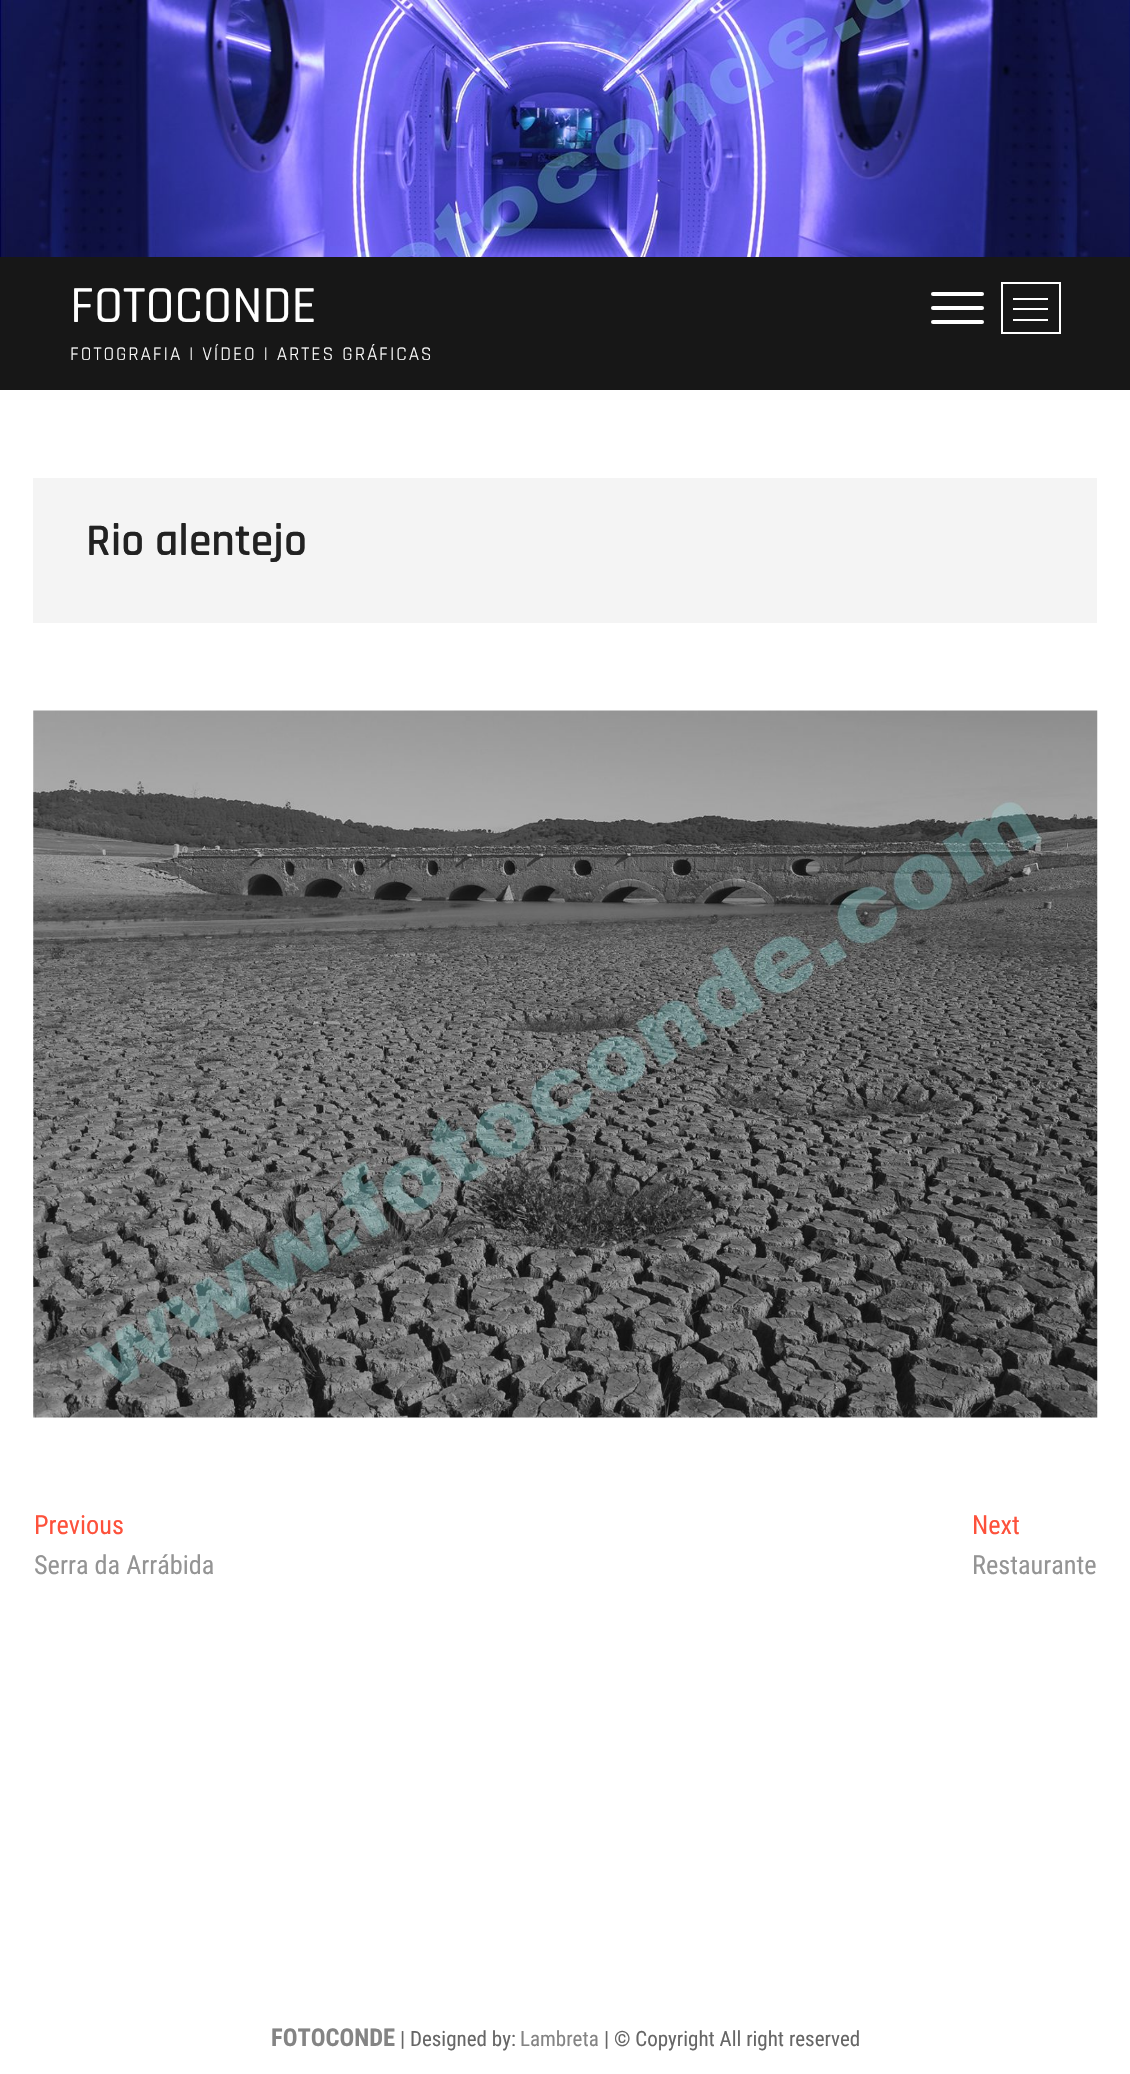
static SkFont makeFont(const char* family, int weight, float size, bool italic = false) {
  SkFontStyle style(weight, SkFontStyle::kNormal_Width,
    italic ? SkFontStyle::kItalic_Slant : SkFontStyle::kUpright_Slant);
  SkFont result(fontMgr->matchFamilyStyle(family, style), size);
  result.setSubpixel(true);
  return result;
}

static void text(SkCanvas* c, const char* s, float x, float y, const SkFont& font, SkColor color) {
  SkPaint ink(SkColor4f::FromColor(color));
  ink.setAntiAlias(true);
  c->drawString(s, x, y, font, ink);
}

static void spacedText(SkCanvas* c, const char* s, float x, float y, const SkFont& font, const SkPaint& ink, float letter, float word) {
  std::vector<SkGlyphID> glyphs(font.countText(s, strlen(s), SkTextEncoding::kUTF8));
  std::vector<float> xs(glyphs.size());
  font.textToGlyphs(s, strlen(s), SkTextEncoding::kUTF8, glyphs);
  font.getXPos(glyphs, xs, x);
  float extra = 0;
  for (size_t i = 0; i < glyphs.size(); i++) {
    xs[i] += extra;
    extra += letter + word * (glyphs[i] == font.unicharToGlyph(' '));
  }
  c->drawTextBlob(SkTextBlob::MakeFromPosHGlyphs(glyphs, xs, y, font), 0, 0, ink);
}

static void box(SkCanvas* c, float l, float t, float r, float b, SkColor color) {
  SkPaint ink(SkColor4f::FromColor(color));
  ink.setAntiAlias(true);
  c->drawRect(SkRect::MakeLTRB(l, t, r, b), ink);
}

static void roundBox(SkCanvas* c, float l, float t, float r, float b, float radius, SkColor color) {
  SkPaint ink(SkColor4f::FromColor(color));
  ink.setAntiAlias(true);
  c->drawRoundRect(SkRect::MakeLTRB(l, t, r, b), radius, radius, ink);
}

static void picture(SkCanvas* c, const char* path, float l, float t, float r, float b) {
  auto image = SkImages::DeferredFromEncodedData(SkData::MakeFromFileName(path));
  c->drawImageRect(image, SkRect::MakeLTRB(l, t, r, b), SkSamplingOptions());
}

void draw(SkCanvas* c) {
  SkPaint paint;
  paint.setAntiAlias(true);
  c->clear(0xffffffff);
  picture(c, "img_01.png", 0, 0, 1130, 257);
  box(c, 0, 257, 1130, 390, 0xff171717);
  SkFont face1 = makeFont("Rajdhani", 500, 52.5f);
  text(c, "FOTOCONDE", 70, 322, face1, 0xffffffff);
  SkFont face2 = makeFont("Rajdhani", 400, 19.25f);
  paint.setColor(0xffffffff);
  spacedText(c, "FOTOGRAFIA | VÍDEO | ARTES GRÁFICAS", 70, 360, face2, paint, 1.95f, 0);
  roundBox(c, 931, 306, 984, 310, 2, 0xffffffff);
  roundBox(c, 931, 292, 984, 296, 2, 0xffffffff);
  roundBox(c, 931, 320, 984, 324, 2, 0xffffffff);
  paint.setStyle(SkPaint::kStroke_Style);
  paint.setStrokeWidth(2);
  c->drawRect(SkRect::MakeLTRB(1002, 283, 1060, 333), paint);
  box(c, 1013, 308, 1048, 310, 0xffffffff);
  box(c, 1013, 298, 1048, 300, 0xffffffff);
  box(c, 1013, 319, 1048, 321, 0xffffffff);
  box(c, 33, 478, 1097, 623, 0xfff4f4f4);
  SkFont face3 = makeFont("Rajdhani", 600, 45.5f);
  text(c, "Rio alentejo", 86, 555, face3, 0xff222222);
  picture(c, "img_02.png", 33, 710, 1098, 1418);
  SkFont face4 = makeFont("Roboto Condensed", 400, 26.25f);
  text(c, "Previous", 34, 1534, face4, 0xfffd513b);
  text(c, "Serra da Arrábida", 34, 1574, face4, 0xff949494);
  text(c, "Next", 972, 1534, face4, 0xfffd513b);
  text(c, "Restaurante", 972, 1574, face4, 0xff949494);
  SkFont face5 = makeFont("Roboto Condensed", 700, 24.5f);
  text(c, "FOTOCONDE", 271, 2046, face5, 0xff848484);
  SkFont face6 = makeFont("Roboto Condensed", 400, 21);
  text(c, "| Designed by:", 400, 2046, face6, 0xff666666);
  text(c, "Lambreta", 520, 2046, face6, 0xff848484);
  text(c, "| © Copyright All right reserved", 604, 2046, face6, 0xff666666);
}
